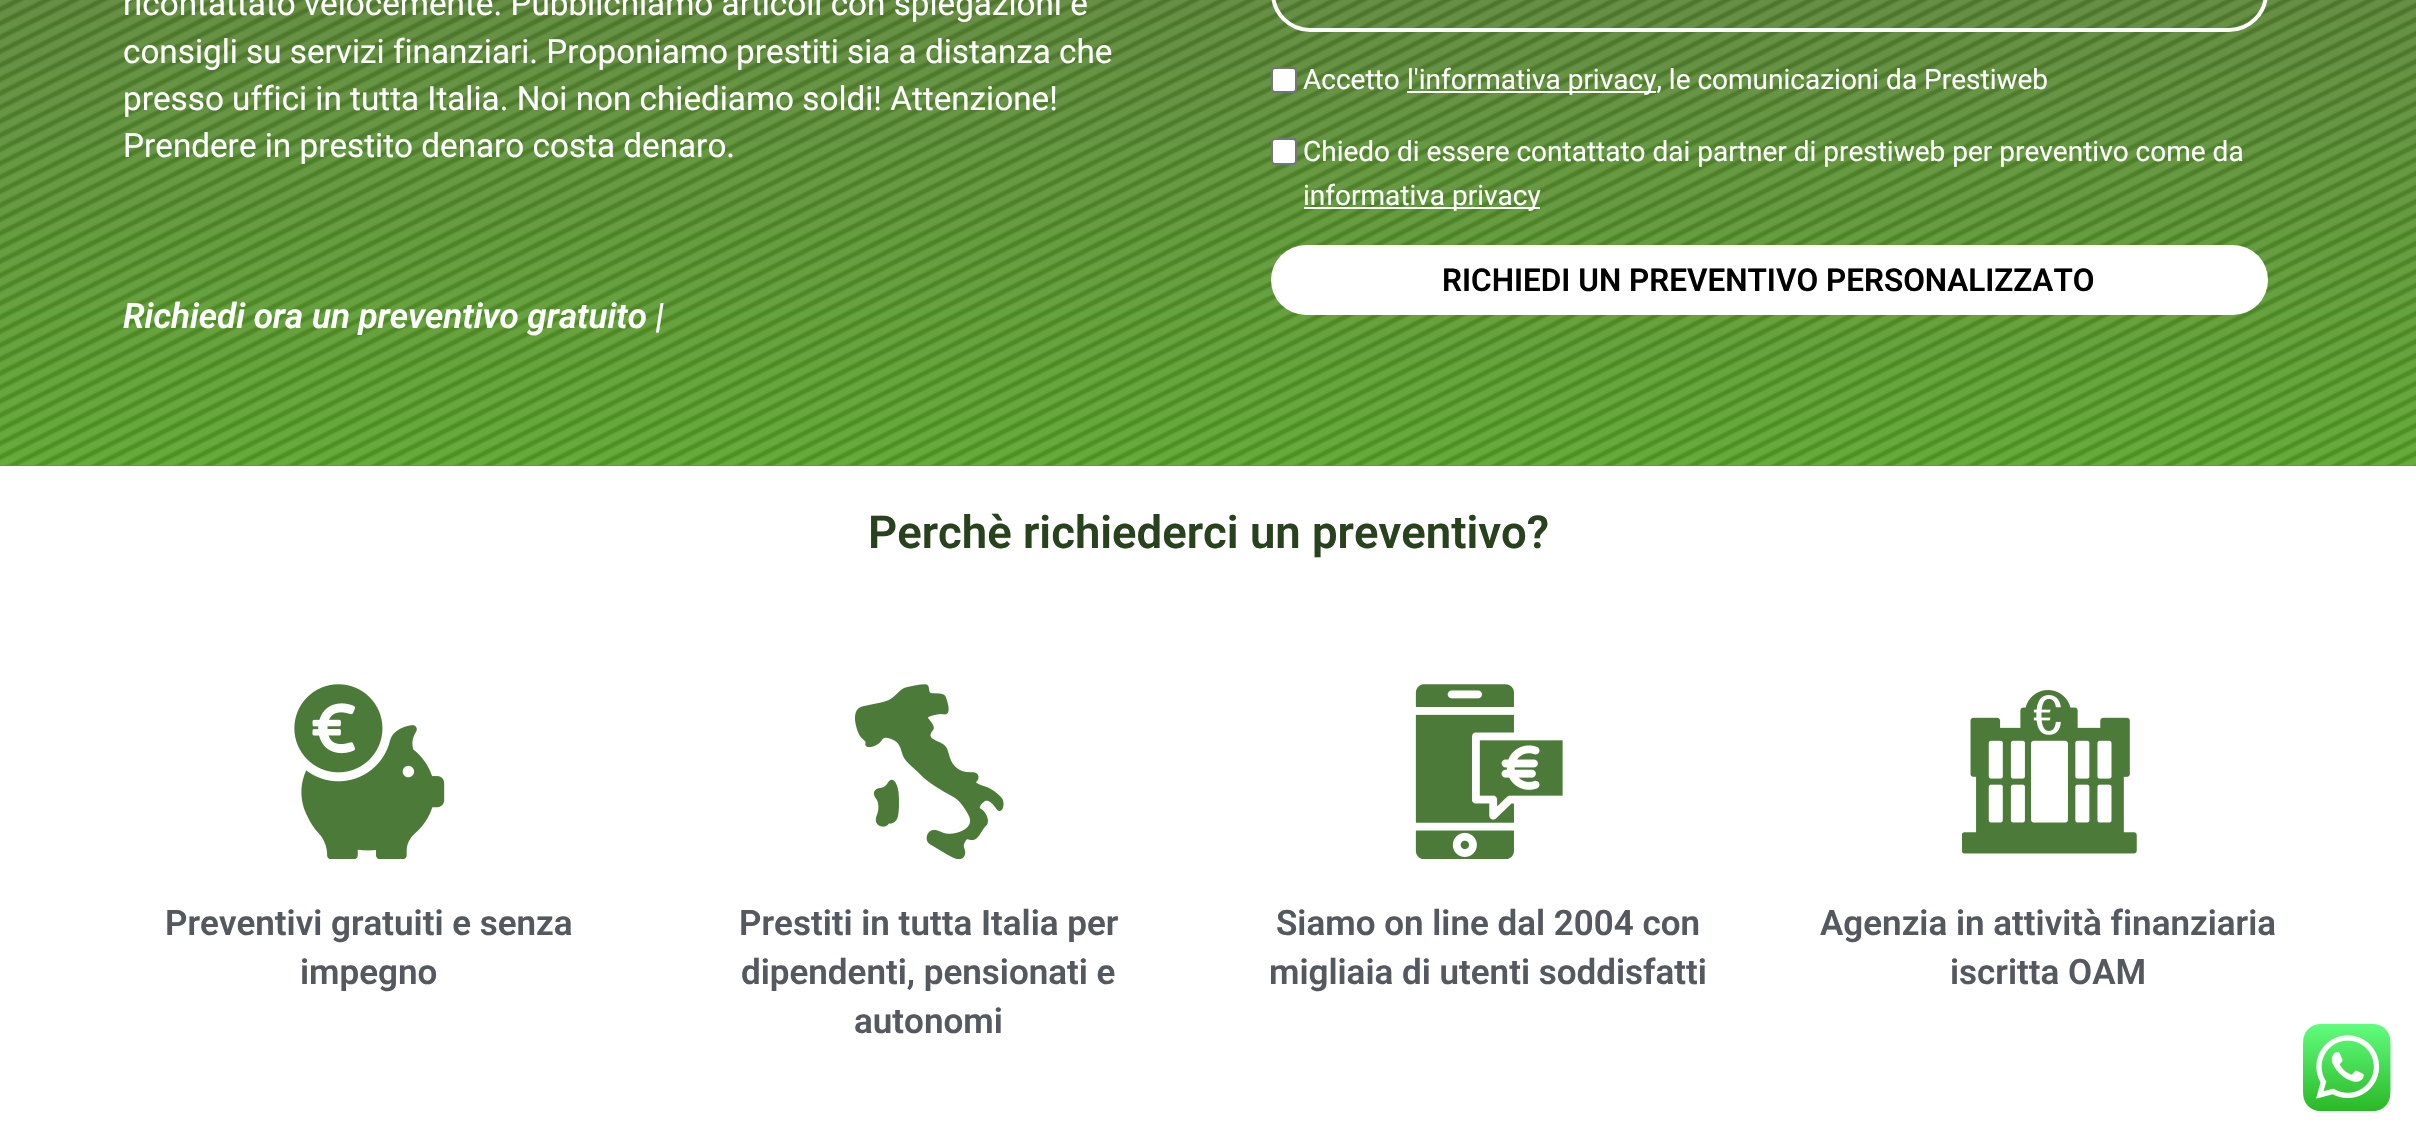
static SkFont makeFont(const char* family, int weight, float size, bool italic = false) {
  SkFontStyle style(weight, SkFontStyle::kNormal_Width,
    italic ? SkFontStyle::kItalic_Slant : SkFontStyle::kUpright_Slant);
  SkFont result(fontMgr->matchFamilyStyle(family, style), size);
  result.setSubpixel(true);
  return result;
}

static void text(SkCanvas* c, const char* s, float x, float y, const SkFont& font, SkColor color) {
  SkPaint ink(SkColor4f::FromColor(color));
  ink.setAntiAlias(true);
  c->drawString(s, x, y, font, ink);
}

static void box(SkCanvas* c, float l, float t, float r, float b, SkColor color) {
  SkPaint ink(SkColor4f::FromColor(color));
  ink.setAntiAlias(true);
  c->drawRect(SkRect::MakeLTRB(l, t, r, b), ink);
}

static void roundBox(SkCanvas* c, float l, float t, float r, float b, float radius, SkColor color) {
  SkPaint ink(SkColor4f::FromColor(color));
  ink.setAntiAlias(true);
  c->drawRoundRect(SkRect::MakeLTRB(l, t, r, b), radius, radius, ink);
}

static void picture(SkCanvas* c, const char* path, float l, float t, float r, float b) {
  auto image = SkImages::DeferredFromEncodedData(SkData::MakeFromFileName(path));
  c->drawImageRect(image, SkRect::MakeLTRB(l, t, r, b), SkSamplingOptions());
}

void draw(SkCanvas* c) {
  SkPaint paint;
  paint.setAntiAlias(true);
  c->clear(0xffffffff);
  {
    const SkColor colors[] = {0xff566b39, 0xff55a126};
    const float stops[] = {0, 1};
    const SkPoint ends[] = {{1208, -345}, {1208, 466}};
    paint.setShader(SkGradientShader::MakeLinear(ends, colors, stops, 2, SkTileMode::kClamp));
    paint.setAlpha(255);
  }
  c->drawRect(SkRect::MakeLTRB(0, 0, 2416, 466), paint);
  picture(c, "img_01.png", 0, 0, 2416, 466);
  SkFont face1 = makeFont("Roboto", 400, 33.25f);
  text(c, "ricontattato velocemente. Pubblichiamo articoli con spiegazioni e", 123, 15, face1, 0xffffffff);
  text(c, "consigli su servizi finanziari. Proponiamo prestiti sia a distanza che", 123, 63, face1, 0xffffffff);
  text(c, "presso uffici in tutta Italia. Noi non chiediamo soldi! Attenzione!", 123, 110, face1, 0xffffffff);
  text(c, "Prendere in prestito denaro costa denaro.", 123, 157, face1, 0xffffffff);
  SkFont face2 = makeFont("Roboto", 600, 35, true);
  text(c, "Richiedi ora un preventivo gratuito |", 123, 328, face2, 0xffffffff);
  paint.setStyle(SkPaint::kStroke_Style);
  paint.setStrokeWidth(4);
  paint.setShader(nullptr);
  paint.setColor(0xffffffff);
  c->drawRoundRect(SkRect::MakeLTRB(1273, -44, 2266, 30), 39.5f, 39.5f, paint);
  paint.setStyle(SkPaint::kFill_Style);
  c->drawRoundRect(SkRect::MakeLTRB(1272, 68, 1296, 92), 3, 3, paint);
  paint.setStyle(SkPaint::kStroke_Style);
  paint.setStrokeWidth(2);
  paint.setColor(0xff767676);
  c->drawRoundRect(SkRect::MakeLTRB(1272, 68, 1296, 92), 3, 3, paint);
  SkFont face3 = makeFont("Roboto", 400, 28);
  text(c, "Accetto", 1303, 89, face3, 0xffffffff);
  box(c, 1407, 91, 1656, 93, 0xffffffff);
  text(c, "l'informativa privacy, le comunicazioni da Prestiweb", 1407, 89, face3, 0xffffffff);
  paint.setStyle(SkPaint::kFill_Style);
  paint.setColor(0xffffffff);
  c->drawRoundRect(SkRect::MakeLTRB(1272, 139, 1296, 164), 3, 3, paint);
  paint.setStyle(SkPaint::kStroke_Style);
  paint.setColor(0xff767676);
  c->drawRoundRect(SkRect::MakeLTRB(1272, 139, 1296, 164), 3, 3, paint);
  text(c, "Chiedo di essere contattato dai partner di prestiweb per preventivo come da", 1303, 161, face3, 0xffffffff);
  box(c, 1304, 207, 1540, 209, 0xffffffff);
  text(c, "informativa privacy", 1303, 205, face3, 0xffffffff);
  roundBox(c, 1271, 245, 2268, 315, 35, 0xffffffff);
  SkFont face4 = makeFont("Roboto", 600, 31.5f);
  text(c, "RICHIEDI UN PREVENTIVO PERSONALIZZATO", 1442, 291, face4, 0xff000000);
  SkFont face5 = makeFont("Roboto", 600, 45.5f);
  text(c, "Perchè richiederci un preventivo?", 868, 548, face5, 0xff28421d);
  picture(c, "img_02.png", 294, 684, 445, 859);
  SkFont face6 = makeFont("Roboto", 600, 35);
  text(c, "Preventivi gratuiti e senza", 165, 935, face6, 0xff54595f);
  text(c, "impegno", 300, 984, face6, 0xff54595f);
  picture(c, "img_03.png", 854, 684, 1004, 859);
  text(c, "Prestiti in tutta Italia per", 739, 935, face6, 0xff54595f);
  text(c, "dipendenti, pensionati e", 741, 984, face6, 0xff54595f);
  text(c, "autonomi", 854, 1033, face6, 0xff54595f);
  picture(c, "img_04.png", 1415, 684, 1563, 859);
  text(c, "Siamo on line dal 2004 con", 1276, 935, face6, 0xff54595f);
  text(c, "migliaia di utenti soddisfatti", 1269, 984, face6, 0xff54595f);
  picture(c, "img_05.png", 1962, 690, 2137, 854);
  text(c, "Agenzia in attività finanziaria", 1820, 935, face6, 0xff54595f);
  text(c, "iscritta OAM", 1950, 984, face6, 0xff54595f);
  picture(c, "img_06.png", 2303, 1024, 2391, 1111);
}
